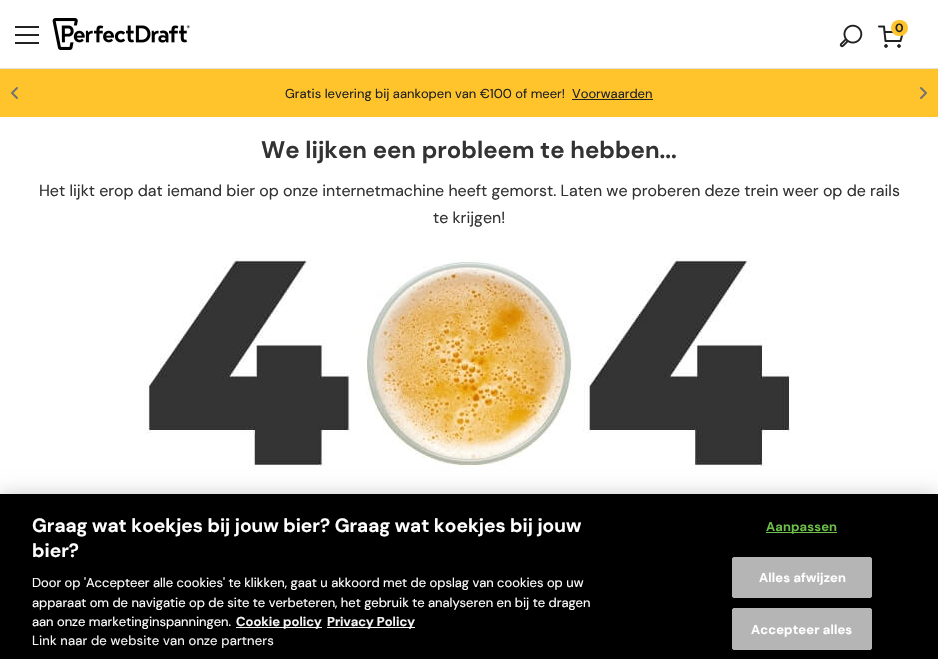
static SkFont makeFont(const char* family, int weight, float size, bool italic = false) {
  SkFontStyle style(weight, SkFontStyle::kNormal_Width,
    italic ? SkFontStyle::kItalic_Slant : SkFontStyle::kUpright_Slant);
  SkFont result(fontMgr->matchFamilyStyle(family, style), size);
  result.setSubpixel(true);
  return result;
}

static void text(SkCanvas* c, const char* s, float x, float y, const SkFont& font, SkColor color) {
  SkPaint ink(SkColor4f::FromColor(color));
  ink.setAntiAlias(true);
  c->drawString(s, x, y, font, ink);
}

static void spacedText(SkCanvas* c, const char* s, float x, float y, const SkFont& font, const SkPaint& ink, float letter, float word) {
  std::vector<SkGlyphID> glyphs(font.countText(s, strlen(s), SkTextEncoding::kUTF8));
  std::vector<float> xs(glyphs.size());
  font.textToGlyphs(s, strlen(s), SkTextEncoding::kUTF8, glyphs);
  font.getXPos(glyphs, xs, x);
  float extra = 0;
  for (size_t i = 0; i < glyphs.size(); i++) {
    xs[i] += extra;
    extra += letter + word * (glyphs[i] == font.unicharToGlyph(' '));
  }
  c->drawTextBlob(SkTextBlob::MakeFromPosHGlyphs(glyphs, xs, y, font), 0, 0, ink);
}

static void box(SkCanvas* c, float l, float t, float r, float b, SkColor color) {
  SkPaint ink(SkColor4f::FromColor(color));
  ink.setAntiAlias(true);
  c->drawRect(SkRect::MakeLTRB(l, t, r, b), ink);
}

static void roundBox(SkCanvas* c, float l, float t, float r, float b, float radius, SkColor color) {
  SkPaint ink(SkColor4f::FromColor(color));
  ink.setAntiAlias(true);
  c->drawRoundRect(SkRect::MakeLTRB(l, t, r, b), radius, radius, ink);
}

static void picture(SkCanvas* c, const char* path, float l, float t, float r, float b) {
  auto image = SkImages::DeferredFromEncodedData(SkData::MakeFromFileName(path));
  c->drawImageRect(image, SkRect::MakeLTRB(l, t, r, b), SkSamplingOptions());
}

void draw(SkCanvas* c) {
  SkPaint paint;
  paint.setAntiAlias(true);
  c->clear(0xffffffff);
  box(c, 0, 68, 938, 69, 0xffe1e1e1);
  box(c, 15, 26, 39, 28, 0xff222222);
  box(c, 15, 34, 39, 36, 0xff222222);
  box(c, 15, 42, 39, 44, 0xff222222);
  picture(c, "img_01.png", 52, 18, 190, 50);
  picture(c, "img_02.png", 839, 24, 863, 48);
  picture(c, "img_03.png", 878, 25, 904, 48);
  roundBox(c, 891, 20, 908, 36, 8, 0xffffc42c);
  SkFont face1 = makeFont("DM Sans", 700, 12);
  text(c, "0", 895, 32, face1, 0xff222222);
  box(c, 0, 69, 938, 117, 0xffffc42c);
  paint.setStyle(SkPaint::kStroke_Style);
  paint.setStrokeWidth(2);
  paint.setStrokeCap(SkPaint::kRound_Cap);
  paint.setStrokeJoin(SkPaint::kRound_Join);
  paint.setColor(0xff737373);
  c->drawPath(SkPathBuilder().moveTo(17, 98).lineTo(12, 93).lineTo(17, 88).detach(), paint);
  SkFont face2 = makeFont("DM Sans", 400, 13);
  text(c, "Gratis levering bij aankopen van €100 of meer!", 285, 98, face2, 0xff222222);
  text(c, "Voorwaarden", 572, 98, face2, 0xff222222);
  box(c, 572, 99, 653, 100, 0xff222222);
  c->drawPath(SkPathBuilder().moveTo(921, 98).lineTo(926, 93).lineTo(921, 88).detach(), paint);
  SkFont face3 = makeFont("DM Sans", 700, 24);
  text(c, "We lijken een probleem te hebben...", 261, 158, face3, 0xff333333);
  SkFont face4 = makeFont("DM Sans", 400, 16);
  text(c, "Het lijkt erop dat iemand bier op onze internetmachine heeft gemorst. Laten we proberen deze trein weer op de rails", 39, 196, face4, 0xff333333);
  text(c, "te krijgen!", 433, 223, face4, 0xff333333);
  picture(c, "img_04.png", 143, 258, 791, 466);
  paint.setStyle(SkPaint::kFill_Style);
  paint.setColor(0x33000000);
  paint.setMaskFilter(SkMaskFilter::MakeBlur(kNormal_SkBlurStyle, 9));
  c->drawRect(SkRect::MakeLTRB(0, 494, 938, 659), paint);
  paint.setMaskFilter(nullptr);
  box(c, 0, 494, 938, 659, 0xff000000);
  SkFont face5 = makeFont("DM Sans", 700, 19.2f);
  text(c, "Graag wat koekjes bij jouw bier? Graag wat koekjes bij jouw", 32, 532, face5, 0xffffffff);
  text(c, "bier?", 32, 557, face5, 0xffffffff);
  text(c, "Door op 'Accepteer alle cookies' te klikken, gaat u akkoord met de opslag van cookies op uw", 32, 587, face2, 0xffffffff);
  text(c, "apparaat om de navigatie op de site te verbeteren, het gebruik te analyseren en bij te dragen", 32, 607, face2, 0xffffffff);
  text(c, "aan onze marketinginspanningen.", 32, 626, face2, 0xffffffff);
  box(c, 236, 627, 322, 628, 0xfff5f5f5);
  SkFont face6 = makeFont("DM Sans", 700, 13);
  text(c, "Cookie policy", 236, 626, face6, 0xfff5f5f5);
  box(c, 327, 627, 415, 628, 0xfff5f5f5);
  text(c, "Privacy Policy", 327, 626, face6, 0xfff5f5f5);
  SkFont face7 = makeFont("DM Sans", 400, 13.1f);
  paint.setColor(0xfff5f5f5);
  spacedText(c, "Link naar de website van onze partners", 32, 645, face7, paint, 0.15f, 0);
  box(c, 766, 532, 837, 533, 0xff6cc04a);
  paint.setColor(0xff6cc04a);
  spacedText(c, "Aanpassen", 766, 531, face6, paint, 0.15f, 0);
  paint.setColor(0xffb5b5b5);
  c->drawRoundRect(SkRect::MakeLTRB(732.5f, 557.5f, 871.5f, 597.5f), 1.5f, 1.5f, paint);
  paint.setStyle(SkPaint::kStroke_Style);
  paint.setStrokeWidth(1);
  paint.setStrokeCap(SkPaint::kButt_Cap);
  paint.setStrokeJoin(SkPaint::kMiter_Join);
  c->drawRoundRect(SkRect::MakeLTRB(732.5f, 557.5f, 871.5f, 597.5f), 1.5f, 1.5f, paint);
  paint.setStyle(SkPaint::kFill_Style);
  paint.setColor(0xffffffff);
  spacedText(c, "Alles afwijzen", 759, 582, face6, paint, 0.15f, 0);
  paint.setColor(0xffb5b5b5);
  c->drawRoundRect(SkRect::MakeLTRB(732.5f, 608.5f, 871.5f, 649.5f), 1.5f, 1.5f, paint);
  paint.setStyle(SkPaint::kStroke_Style);
  c->drawRoundRect(SkRect::MakeLTRB(732.5f, 608.5f, 871.5f, 649.5f), 1.5f, 1.5f, paint);
  paint.setStyle(SkPaint::kFill_Style);
  paint.setColor(0xffffffff);
  spacedText(c, "Accepteer alles", 751, 634, face6, paint, 0.15f, 0);
}
